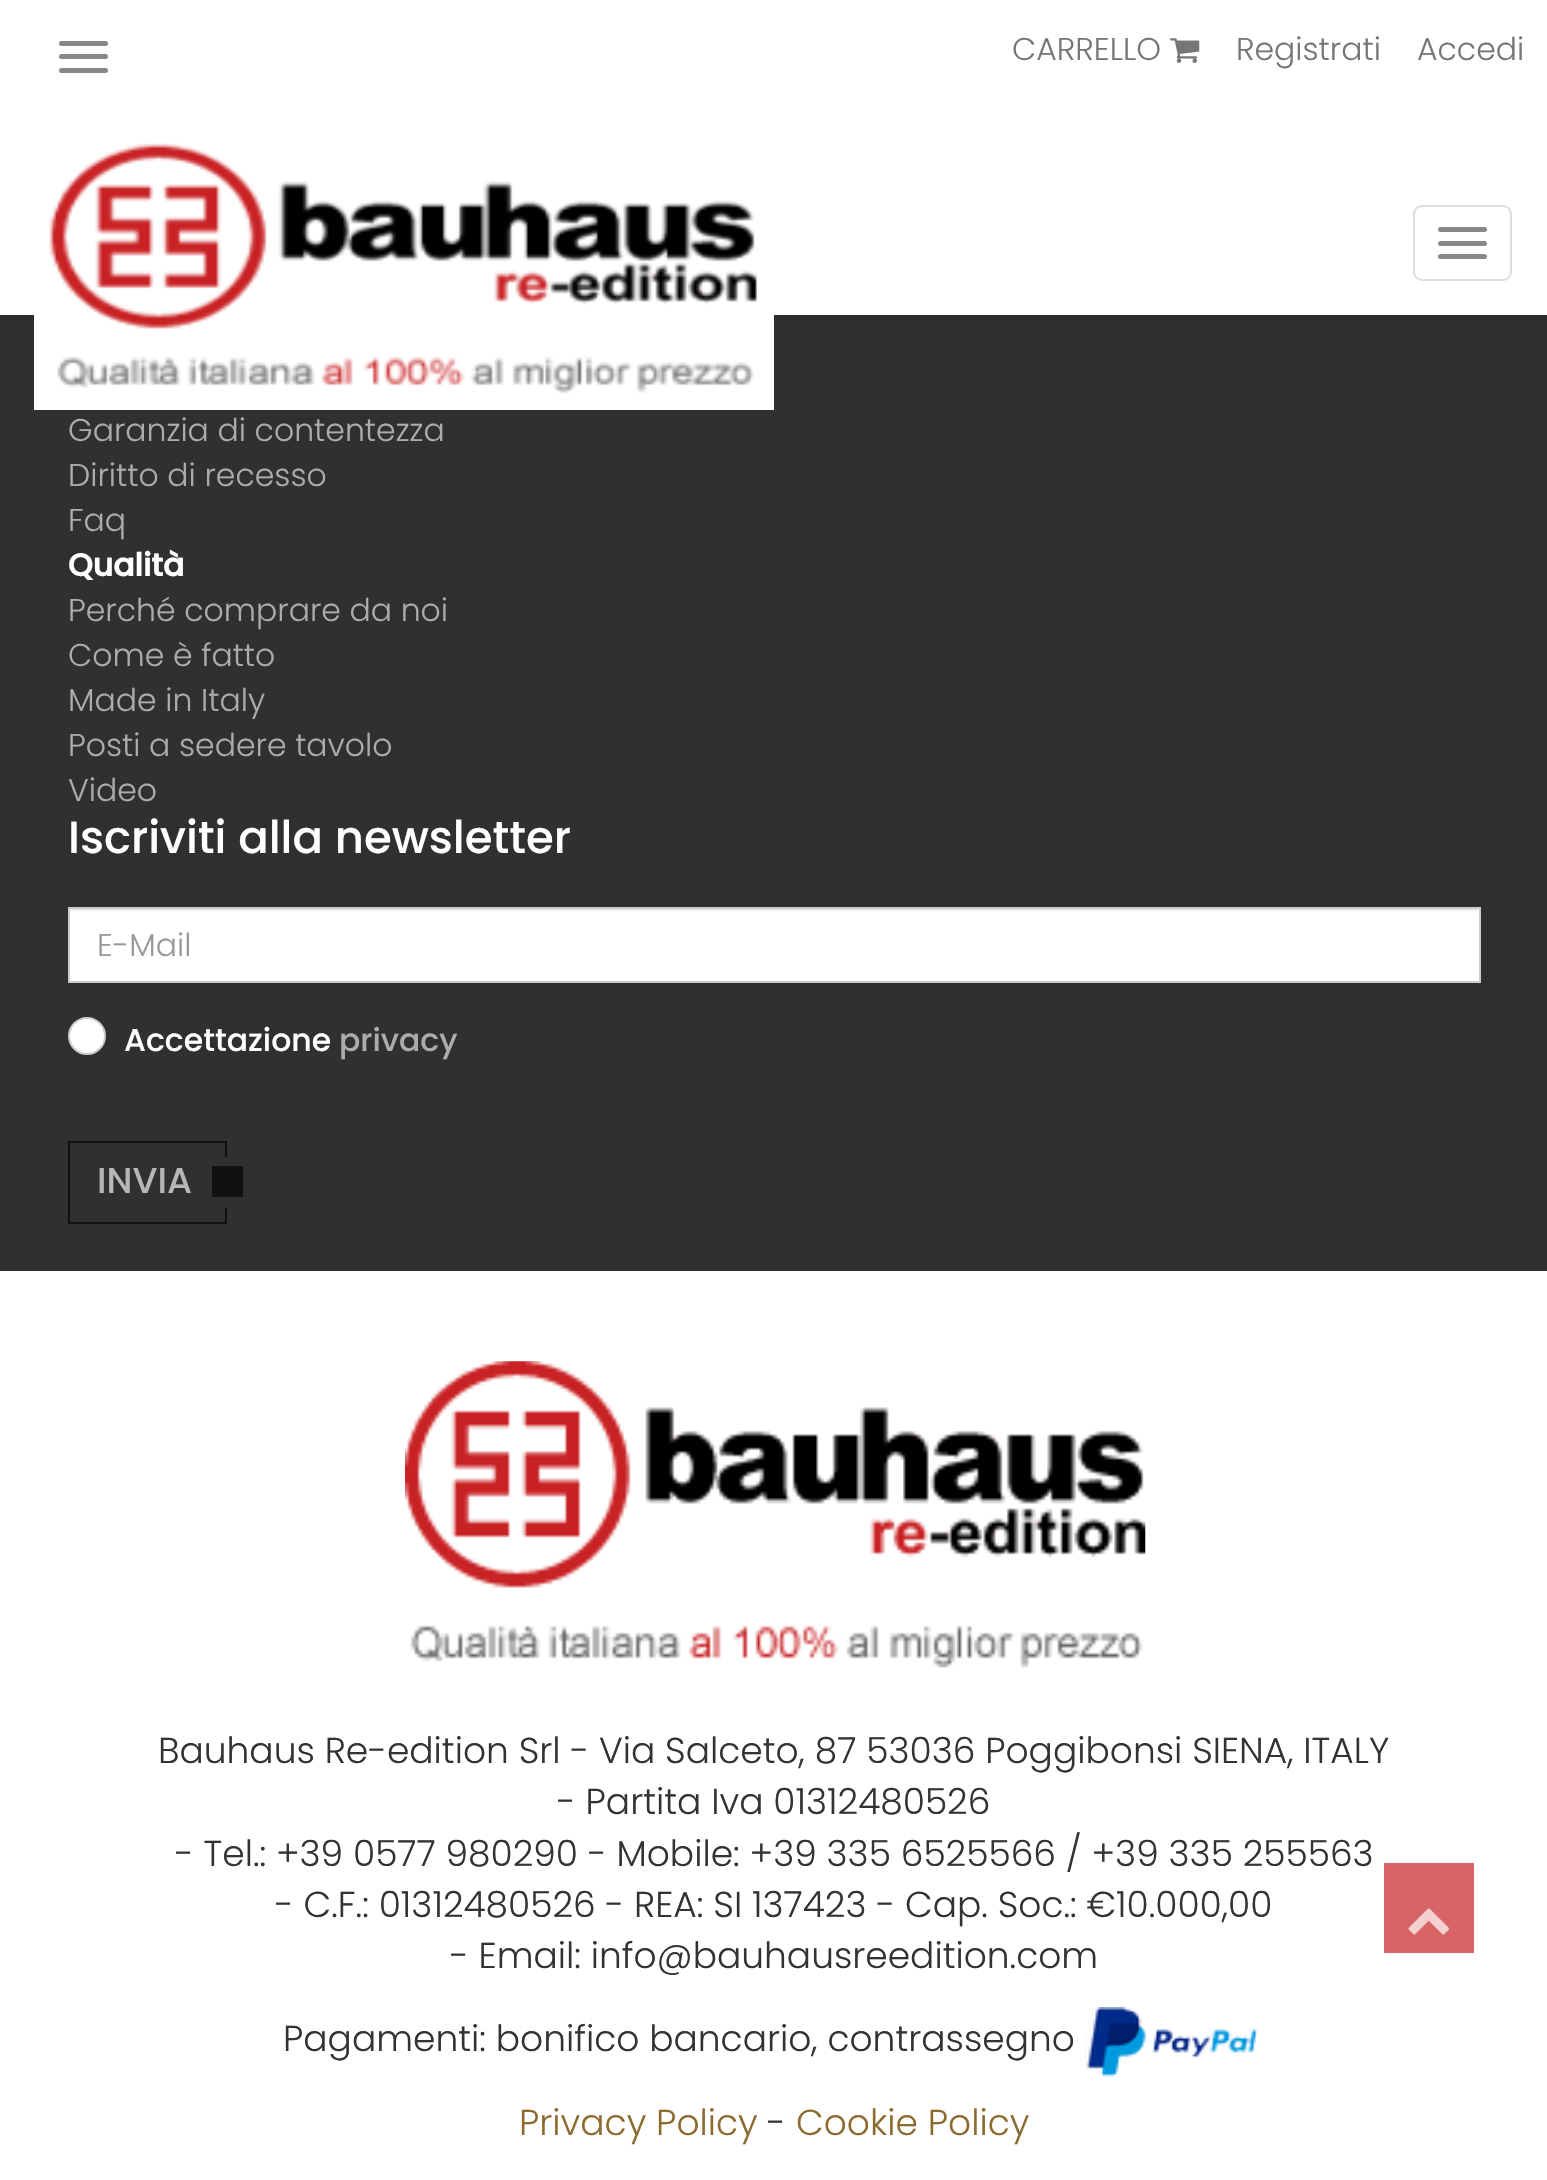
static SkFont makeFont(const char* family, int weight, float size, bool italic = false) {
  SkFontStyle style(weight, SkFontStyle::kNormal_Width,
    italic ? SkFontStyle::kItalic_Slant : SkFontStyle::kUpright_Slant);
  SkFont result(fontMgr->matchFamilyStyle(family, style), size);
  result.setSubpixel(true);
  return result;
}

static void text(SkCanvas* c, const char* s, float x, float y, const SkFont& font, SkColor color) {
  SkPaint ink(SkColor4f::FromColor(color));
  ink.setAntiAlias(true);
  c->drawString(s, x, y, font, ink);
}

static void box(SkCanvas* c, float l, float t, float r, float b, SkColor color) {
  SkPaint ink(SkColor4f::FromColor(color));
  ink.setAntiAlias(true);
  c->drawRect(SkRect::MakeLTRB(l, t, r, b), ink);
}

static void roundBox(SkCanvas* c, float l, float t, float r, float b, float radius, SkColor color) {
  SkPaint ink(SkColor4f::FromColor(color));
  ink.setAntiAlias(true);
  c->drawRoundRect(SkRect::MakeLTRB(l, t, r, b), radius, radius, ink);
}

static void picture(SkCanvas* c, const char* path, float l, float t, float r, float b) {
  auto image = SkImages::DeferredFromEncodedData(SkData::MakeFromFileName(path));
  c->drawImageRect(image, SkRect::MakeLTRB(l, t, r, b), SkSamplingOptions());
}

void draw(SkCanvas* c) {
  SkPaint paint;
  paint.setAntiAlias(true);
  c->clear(0xffffffff);
  box(c, 0, 315, 1547, 1271, 0xff303030);
  paint.setColor(0x1a000000);
  paint.setMaskFilter(SkMaskFilter::MakeBlur(kNormal_SkBlurStyle, 5.5f));
  c->drawRect(SkRect::MakeLTRB(0, 5, 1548, 320), paint);
  paint.setMaskFilter(nullptr);
  box(c, 0, 0, 1547, 315, 0xffffffff);
  roundBox(c, 59, 41, 108, 46, 2.5f, 0xff888888);
  roundBox(c, 59, 54, 108, 59, 2.5f, 0xff888888);
  roundBox(c, 59, 68, 108, 73, 2.5f, 0xff888888);
  SkFont face1 = makeFont("Poppins", 300, 31.5f);
  text(c, "CARRELLO", 1012, 60, face1, 0xff767676);
  picture(c, "img_01.png", 1170, 38, 1200, 63);
  text(c, "Registrati", 1236, 60, face1, 0xff767676);
  text(c, "Accedi", 1417, 60, face1, 0xff767676);
  box(c, 34, 315, 774, 410, 0xffffffff);
  picture(c, "img_02.png", 49, 143, 757, 394);
  paint.setStyle(SkPaint::kStroke_Style);
  paint.setStrokeWidth(2);
  paint.setColor(0xffdddddd);
  c->drawRoundRect(SkRect::MakeLTRB(1414, 206, 1511, 280), 8, 8, paint);
  roundBox(c, 1438, 227, 1487, 232, 2.5f, 0xff888888);
  roundBox(c, 1438, 241, 1487, 246, 2.5f, 0xff888888);
  roundBox(c, 1438, 254, 1487, 259, 2.5f, 0xff888888);
  text(c, "Garanzia di contentezza", 68, 441, face1, 0xffacacac);
  text(c, "Diritto di recesso", 68, 486, face1, 0xffacacac);
  text(c, "Faq", 68, 531, face1, 0xffacacac);
  SkFont face2 = makeFont("Poppins", 700, 31.5f);
  text(c, "Qualità", 68, 576, face2, 0xffffffff);
  text(c, "Perché comprare da noi", 68, 621, face1, 0xffacacac);
  text(c, "Come è fatto", 68, 666, face1, 0xffacacac);
  text(c, "Made in Italy", 68, 711, face1, 0xffacacac);
  text(c, "Posti a sedere tavolo", 68, 756, face1, 0xffacacac);
  text(c, "Video", 68, 801, face1, 0xffacacac);
  SkFont face3 = makeFont("Poppins", 500, 45);
  text(c, "Iscriviti alla newsletter", 68, 853, face3, 0xffffffff);
  box(c, 70, 909, 1479, 981, 0xffffffff);
  box(c, 70, 909, 1478, 911, 0xffececec);
  paint.setColor(0xffcccccc);
  c->drawRect(SkRect::MakeLTRB(69, 908, 1480, 982), paint);
  text(c, "E-Mail", 97, 956, face1, 0xff999999);
  paint.setStyle(SkPaint::kFill_Style);
  paint.setColor(0xffffffff);
  c->drawCircle(87, 1036, 18, paint);
  paint.setStyle(SkPaint::kStroke_Style);
  paint.setColor(0xffcccccc);
  c->drawCircle(87, 1036, 18, paint);
  SkFont face4 = makeFont("Poppins", 500, 31.5f);
  text(c, "Accettazione", 124, 1051, face4, 0xffffffff);
  text(c, "privacy", 339, 1051, face4, 0xffacacac);
  box(c, 68, 1141, 227, 1143, 0xff111111);
  box(c, 68, 1222, 227, 1224, 0xff111111);
  box(c, 68, 1141, 70, 1224, 0xff111111);
  box(c, 225, 1143, 227, 1157, 0xff111111);
  SkFont face5 = makeFont("Poppins", 500, 36);
  text(c, "INVIA", 97, 1193, face5, 0xffb7b7b7);
  box(c, 225, 1208, 227, 1222, 0xff111111);
  box(c, 212, 1166, 243, 1197, 0xff111111);
  picture(c, "img_03.png", 405, 1361, 1146, 1668);
  SkFont face6 = makeFont("Poppins", 300, 36);
  text(c, "Bauhaus Re-edition Srl - Via Salceto, 87 53036 Poggibonsi SIENA, ITALY", 158, 1763, face6, 0xff333333);
  text(c, "- Partita Iva 01312480526", 557, 1814, face6, 0xff333333);
  text(c, "- Tel.: +39 0577 980290 - Mobile: +39 335 6525566 / +39 335 255563", 175, 1866, face6, 0xff333333);
  text(c, "- C.F.: 01312480526 - REA: SI 137423 - Cap. Soc.: €10.000,00", 275, 1917, face6, 0xff333333);
  text(c, "- Email: info@bauhausreedition.com", 450, 1968, face6, 0xff333333);
  text(c, "Pagamenti: bonifico bancario, contrassegno", 283, 2051, face6, 0xff333333);
  picture(c, "img_04.png", 1084, 2007, 1258, 2077);
  text(c, "Privacy Policy", 519, 2135, face6, 0xff8c6b2f);
  text(c, "-", 767, 2135, face6, 0xff333333);
  text(c, "Cookie Policy", 796, 2135, face6, 0xff8c6b2f);
  box(c, 1384, 1863, 1474, 1953, 0xffd96466);
  picture(c, "img_05.png", 1408, 1908, 1449, 1935);
}
